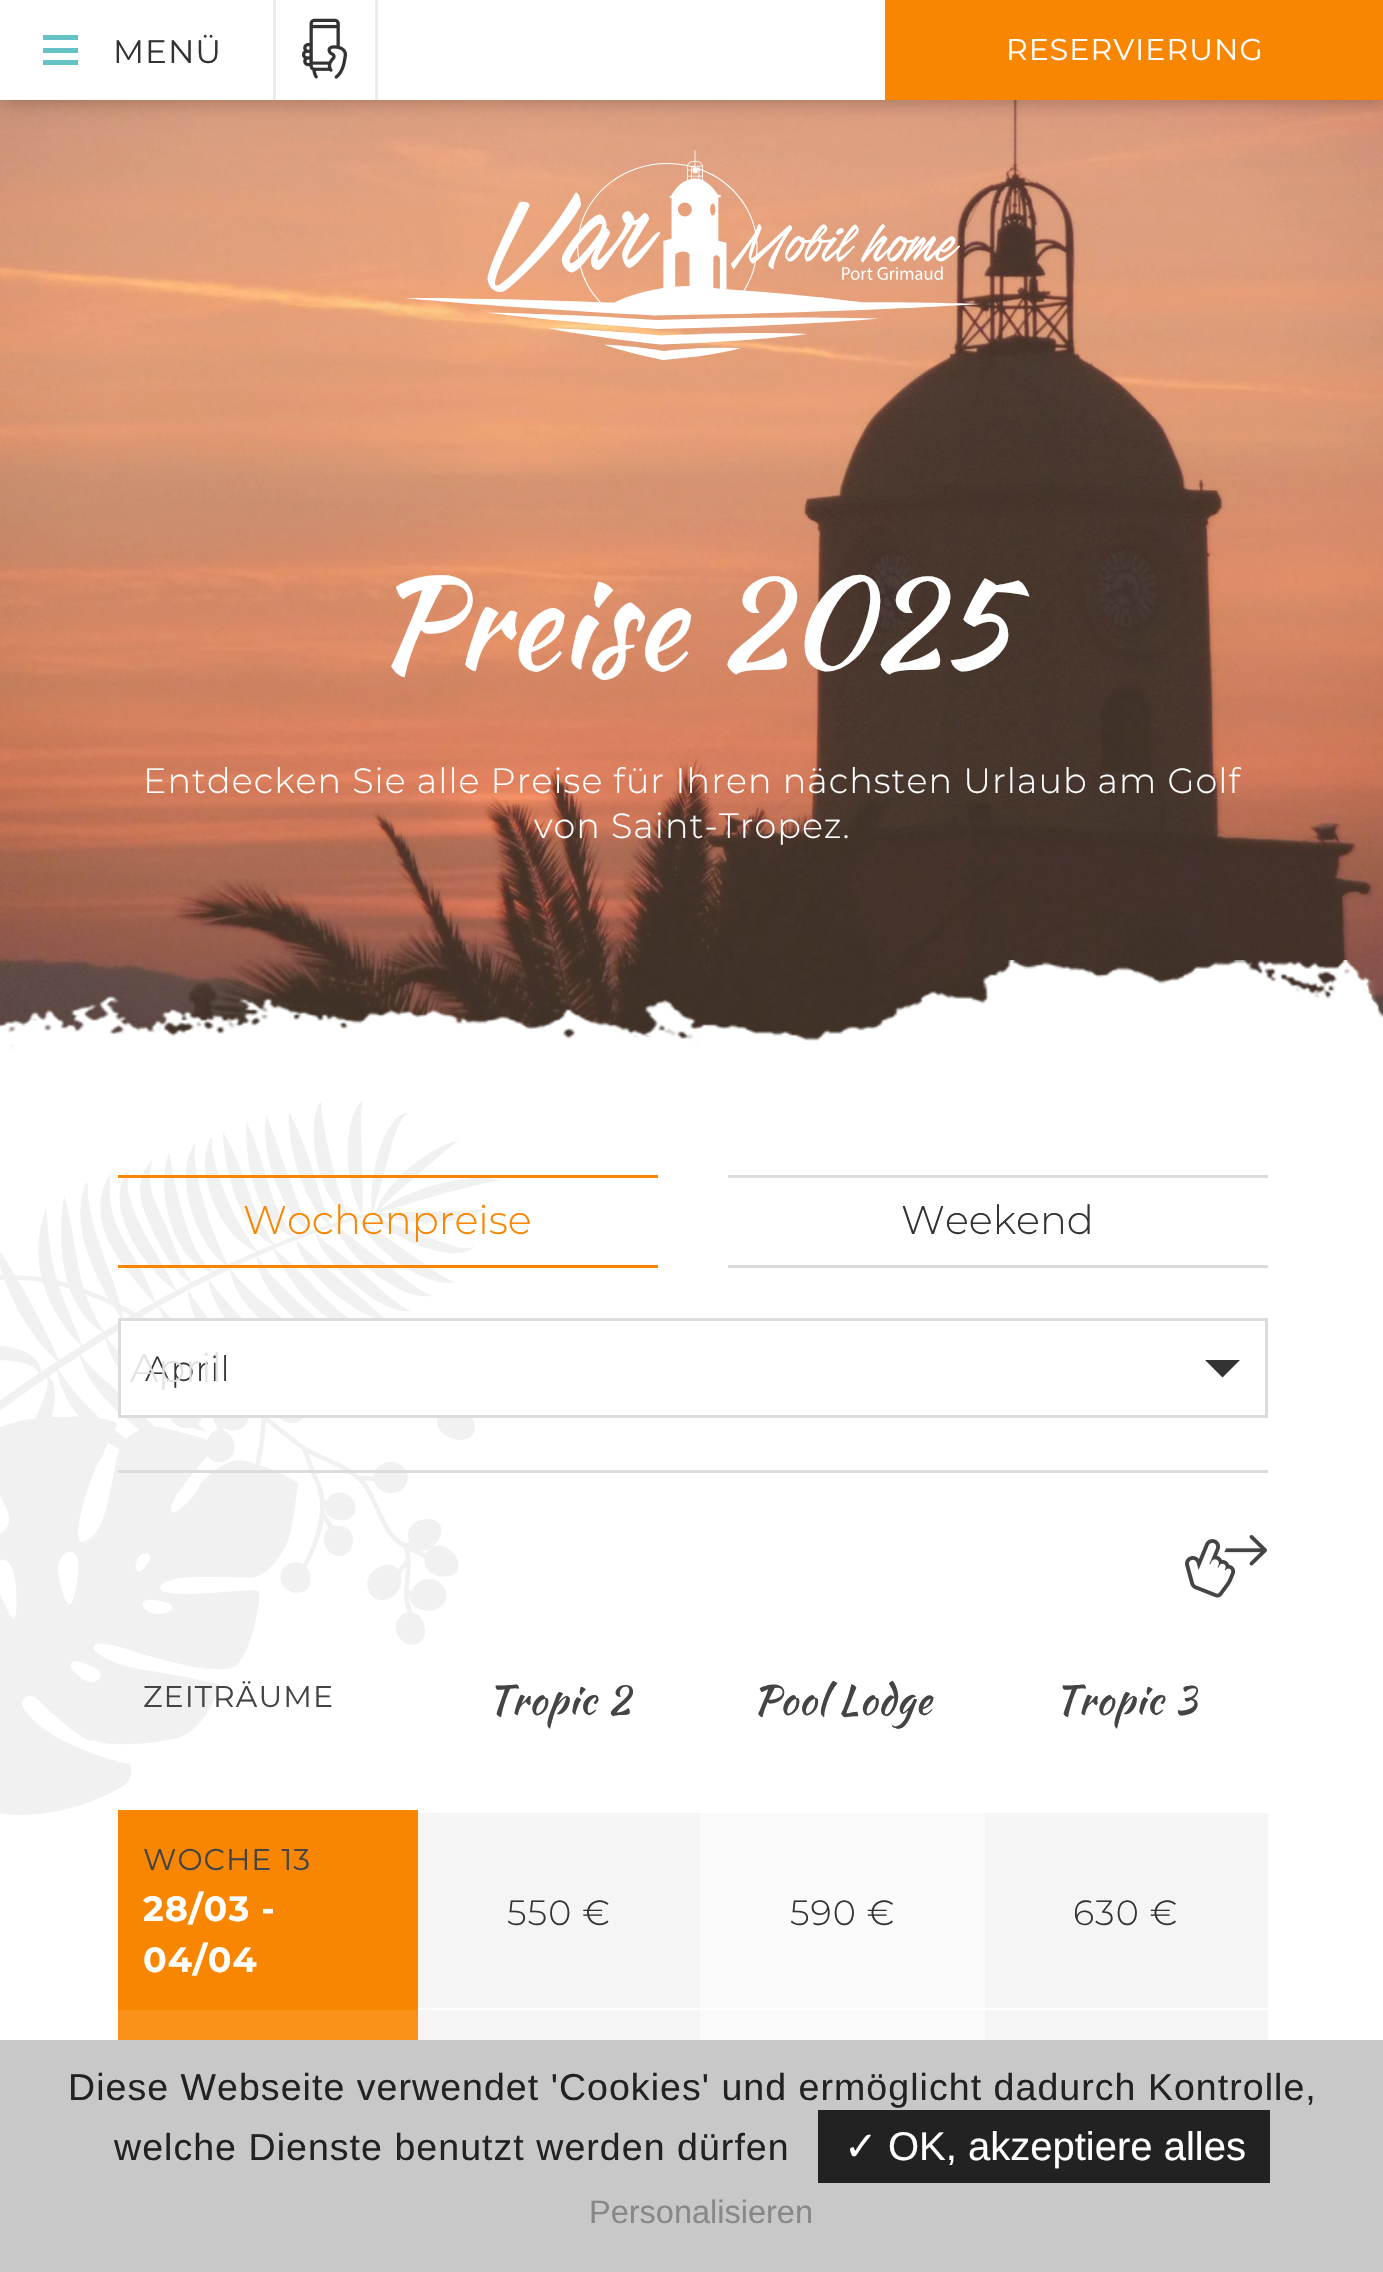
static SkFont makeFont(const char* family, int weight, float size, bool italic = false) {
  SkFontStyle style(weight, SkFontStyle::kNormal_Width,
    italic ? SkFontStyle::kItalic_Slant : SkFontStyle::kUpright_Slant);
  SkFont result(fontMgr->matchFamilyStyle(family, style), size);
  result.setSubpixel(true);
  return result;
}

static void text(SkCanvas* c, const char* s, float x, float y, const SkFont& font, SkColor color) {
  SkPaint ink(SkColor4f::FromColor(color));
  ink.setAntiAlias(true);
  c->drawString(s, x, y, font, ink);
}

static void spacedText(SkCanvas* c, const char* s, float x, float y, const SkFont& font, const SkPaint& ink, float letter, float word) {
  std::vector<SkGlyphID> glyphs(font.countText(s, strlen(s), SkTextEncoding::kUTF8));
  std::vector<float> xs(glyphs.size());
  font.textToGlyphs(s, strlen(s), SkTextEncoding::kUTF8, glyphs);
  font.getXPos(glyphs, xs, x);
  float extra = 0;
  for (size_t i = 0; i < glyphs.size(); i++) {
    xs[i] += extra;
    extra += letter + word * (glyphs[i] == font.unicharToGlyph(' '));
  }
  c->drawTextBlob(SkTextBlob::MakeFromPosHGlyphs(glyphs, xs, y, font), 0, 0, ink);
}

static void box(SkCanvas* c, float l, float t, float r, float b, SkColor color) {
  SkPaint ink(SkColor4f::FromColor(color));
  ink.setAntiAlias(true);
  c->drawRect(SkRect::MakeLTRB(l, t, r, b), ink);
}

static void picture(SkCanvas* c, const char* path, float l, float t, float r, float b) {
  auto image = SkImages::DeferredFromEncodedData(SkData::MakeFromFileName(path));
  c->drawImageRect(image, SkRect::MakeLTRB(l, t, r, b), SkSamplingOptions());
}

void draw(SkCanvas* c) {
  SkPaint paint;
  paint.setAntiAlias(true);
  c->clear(0xffffffff);
  picture(c, "img_03.png", 0, 100, 1383, 1050);
  paint.setColor(0x4d000000);
  paint.setMaskFilter(SkMaskFilter::MakeBlur(kNormal_SkBlurStyle, 10));
  c->drawRect(SkRect::MakeLTRB(0, 0, 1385, 100), paint);
  paint.setMaskFilter(nullptr);
  box(c, 0, 0, 885, 100, 0xffffffff);
  box(c, 273, 0, 276, 100, 0xffebebeb);
  box(c, 43, 35, 78, 40, 0xff65c3c6);
  box(c, 43, 48, 78, 53, 0xff65c3c6);
  box(c, 43, 60, 78, 65, 0xff65c3c6);
  SkFont face1 = makeFont("Montserrat", 400, 32.5f);
  paint.setColor(0xff333333);
  spacedText(c, "MENÜ", 113, 63, face1, paint, 1.05f, 0);
  box(c, 375, 0, 378, 100, 0xffebebeb);
  picture(c, "img_01.png", 302, 18, 347, 79);
  box(c, 885, 0, 1383, 100, 0xfff98600);
  SkFont face2 = makeFont("Montserrat", 400, 30);
  paint.setColor(0xffffffff);
  spacedText(c, "RESERVIERUNG", 1006, 60, face2, paint, 1.05f, 0);
  picture(c, "img_02.png", 405, 150, 979, 360);
  SkFont face3 = makeFont("Kaushan Script", 400, 125);
  spacedText(c, "Preise 2025", 375, 667, face3, paint, 1.05f, 0);
  SkFont face4 = makeFont("Montserrat", 300, 35);
  spacedText(c, "Entdecken Sie alle Preise für Ihren nächsten Urlaub am Golf", 143, 793, face4, paint, 1.05f, 0);
  spacedText(c, "von Saint-Tropez.", 534, 838, face4, paint, 1.05f, 0);
  picture(c, "img_04.png", 0, 960, 1383, 1050);
  picture(c, "img_05.png", 0, 1101, 500, 1815);
  box(c, 118, 1470, 1268, 1473, 0xffdcdcdc);
  box(c, 118, 1175, 658, 1178, 0xfff98600);
  box(c, 118, 1265, 658, 1268, 0xfff98600);
  SkFont face5 = makeFont("Montserrat", 300, 40);
  text(c, "Wochenpreise", 243, 1234, face5, 0xfff98600);
  box(c, 728, 1175, 1268, 1178, 0xffdcdcdc);
  box(c, 728, 1265, 1268, 1268, 0xffdcdcdc);
  text(c, "Weekend", 901, 1234, face5, 0xff333333);
  box(c, 121, 1321, 500, 1415, 0xffffffff);
  paint.setStyle(SkPaint::kStroke_Style);
  paint.setStrokeWidth(3);
  paint.setColor(0xffdcdcdc);
  c->drawRect(SkRect::MakeLTRB(119.5f, 1319.5f, 1266.5f, 1416.5f), paint);
  paint.setStyle(SkPaint::kFill_Style);
  paint.setColor(0xff333333);
  spacedText(c, "April", 145, 1381, face4, paint, 1.05f, 0);
  text(c, "April", 130, 1382, face5, 0xffe1e1e1);
  c->drawPath(SkPathBuilder().moveTo(1205, 1360).lineTo(1240, 1360).lineTo(1222.5f, 1377.5f).close().detach(), paint);
  picture(c, "img_06.png", 1185, 1535, 1267, 1598);
  paint.setColor(0xff444444);
  spacedText(c, "ZEITRÄUME", 143, 1707, face2, paint, 1.05f, 0);
  box(c, 118, 1810, 418, 2010, 0xfff98600);
  spacedText(c, "WOCHE 13", 143, 1870, face2, paint, 1.05f, 0);
  SkFont face6 = makeFont("Montserrat", 700, 35);
  paint.setColor(0xffffffff);
  spacedText(c, "28/03 -", 143, 1921, face6, paint, 1.05f, 0);
  spacedText(c, "04/04", 143, 1972, face6, paint, 1.05f, 0);
  box(c, 118, 2010, 418, 2040, 0xfffa9219);
  SkFont face7 = makeFont("Kaushan Script", 400, 40);
  paint.setColor(0xff444444);
  spacedText(c, "Tropic 2", 487, 1714, face7, paint, 1.05f, 0);
  spacedText(c, "Pool Lodge", 753, 1714, face7, paint, 1.05f, 0);
  spacedText(c, "Tropic 3", 1054, 1714, face7, paint, 1.05f, 0);
  box(c, 418, 1813, 700, 2008, 0xfff5f5f5);
  paint.setColor(0xff333333);
  spacedText(c, "550 €", 507, 1925, face4, paint, 1.05f, 0);
  box(c, 700, 1813, 985, 2008, 0xfffbfbfb);
  spacedText(c, "590 €", 790, 1925, face4, paint, 1.05f, 0);
  box(c, 985, 1813, 1268, 2008, 0xfff5f5f5);
  spacedText(c, "630 €", 1073, 1925, face4, paint, 1.05f, 0);
  box(c, 418, 2010, 700, 2040, 0xfff5f5f5);
  box(c, 700, 2010, 985, 2040, 0xfffbfbfb);
  box(c, 985, 2010, 1268, 2040, 0xfff5f5f5);
  box(c, 0, 2040, 1383, 2272, 0xffc8c8c8);
  SkFont face8 = makeFont("Liberation Sans", 400, 37.5f);
  paint.setColor(0xff222222);
  spacedText(c, "Diese Webseite verwendet 'Cookies' und ermöglicht dadurch Kontrolle,", 68, 2100, face8, paint, 1.05f, 0);
  spacedText(c, "welche Dienste benutzt werden dürfen", 114, 2160, face8, paint, 1.05f, 0);
  box(c, 818, 2110, 1270, 2183, 0xff222222);
  SkFont face9 = makeFont("DejaVu Sans", 400, 40);
  text(c, "✓", 844, 2160, face9, 0xffffffff);
  SkFont face10 = makeFont("Liberation Sans", 400, 40);
  text(c, "OK, akzeptiere alles", 888, 2160, face10, 0xffffffff);
  SkFont face11 = makeFont("Liberation Sans", 400, 32.5f);
  text(c, "Personalisieren", 589, 2223, face11, 0xff888888);
}
